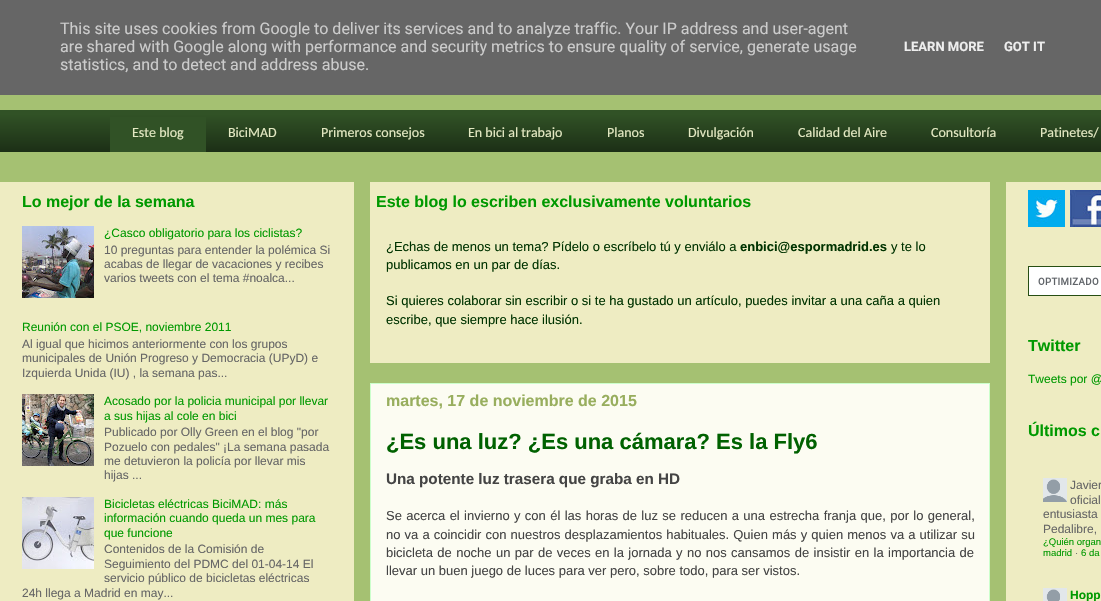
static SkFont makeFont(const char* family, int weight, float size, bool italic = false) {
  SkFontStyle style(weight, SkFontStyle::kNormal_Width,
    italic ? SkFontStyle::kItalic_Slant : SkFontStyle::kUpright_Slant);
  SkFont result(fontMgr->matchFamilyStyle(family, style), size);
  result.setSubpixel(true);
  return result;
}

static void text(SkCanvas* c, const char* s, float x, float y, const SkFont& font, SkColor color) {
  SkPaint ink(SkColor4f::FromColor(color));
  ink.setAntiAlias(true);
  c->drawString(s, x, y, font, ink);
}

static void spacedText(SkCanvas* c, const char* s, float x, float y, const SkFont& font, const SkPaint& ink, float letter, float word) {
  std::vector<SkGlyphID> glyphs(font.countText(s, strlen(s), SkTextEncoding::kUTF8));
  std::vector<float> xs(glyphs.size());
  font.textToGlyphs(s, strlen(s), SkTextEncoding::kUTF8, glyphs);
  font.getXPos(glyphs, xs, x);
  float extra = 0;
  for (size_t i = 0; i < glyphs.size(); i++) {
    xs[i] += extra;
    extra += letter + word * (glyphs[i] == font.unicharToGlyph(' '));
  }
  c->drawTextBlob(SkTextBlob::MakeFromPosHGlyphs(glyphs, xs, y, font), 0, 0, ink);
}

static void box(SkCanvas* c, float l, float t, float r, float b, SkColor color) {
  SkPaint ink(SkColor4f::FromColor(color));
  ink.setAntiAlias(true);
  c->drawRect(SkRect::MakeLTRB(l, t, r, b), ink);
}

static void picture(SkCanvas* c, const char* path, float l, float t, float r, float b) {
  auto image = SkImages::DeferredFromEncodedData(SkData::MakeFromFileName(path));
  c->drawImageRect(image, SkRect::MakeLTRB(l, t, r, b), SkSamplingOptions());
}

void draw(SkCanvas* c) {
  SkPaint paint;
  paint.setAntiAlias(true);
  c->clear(0xffa5c172);
  box(c, 0, 0, 1101, 95, 0xff666666);
  SkFont face1 = makeFont("Roboto", 400, 16);
  text(c, "This site uses cookies from Google to deliver its services and to analyze traffic. Your IP address and user-agent", 60, 34, face1, 0xffcccccc);
  text(c, "are shared with Google along with performance and security metrics to ensure quality of service, generate usage", 60, 52, face1, 0xffcccccc);
  text(c, "statistics, and to detect and address abuse.", 60, 70, face1, 0xffcccccc);
  SkFont face2 = makeFont("Roboto", 700, 13);
  text(c, "LEARN MORE", 904, 51, face2, 0xffeeeeee);
  text(c, "GOT IT", 1004, 51, face2, 0xffeeeeee);
  {
    const SkColor colors[] = {0xff315226, 0xff1c2f16};
    const float stops[] = {0, 1};
    const SkPoint ends[] = {{675, 114}, {675, 152}};
    paint.setShader(SkGradientShader::MakeLinear(ends, colors, stops, 2, SkTileMode::kClamp));
    paint.setAlpha(255);
  }
  c->drawRect(SkRect::MakeLTRB(0, 114, 1101, 152), paint);
  box(c, 0, 110, 1101, 114, 0xff315226);
  box(c, 110, 117, 206, 152, 0xff315226);
  SkFont face3 = makeFont("Carlito", 400, 14);
  text(c, "Este blog", 132, 137, face3, 0xffe3e8c2);
  text(c, "BiciMAD", 228, 137, face3, 0xffe3e8c2);
  text(c, "Primeros consejos", 321, 137, face3, 0xffe3e8c2);
  text(c, "En bici al trabajo", 468, 137, face3, 0xffe3e8c2);
  text(c, "Planos", 607, 137, face3, 0xffe3e8c2);
  text(c, "Divulgación", 688, 137, face3, 0xffe3e8c2);
  text(c, "Calidad del Aire", 798, 137, face3, 0xffe3e8c2);
  text(c, "Consultoría", 931, 137, face3, 0xffe3e8c2);
  text(c, "Patinetes/", 1040, 137, face3, 0xffe3e8c2);
  box(c, 0, 182, 354, 601, 0xffeeecc2);
  SkFont face4 = makeFont("Liberation Sans", 700, 16);
  text(c, "Lo mejor de la semana", 22, 207, face4, 0xff009900);
  picture(c, "img_01.png", 22, 226, 94, 298);
  SkFont face5 = makeFont("Liberation Sans", 400, 12);
  text(c, "¿Casco obligatorio para los ciclistas?", 104, 237, face5, 0xff009900);
  text(c, "10 preguntas para entender la polémica Si", 104, 254, face5, 0xff666666);
  text(c, "acabas de llegar de vacaciones y recibes", 104, 268, face5, 0xff666666);
  text(c, "varios tweets con el tema #noalca...", 104, 282, face5, 0xff666666);
  text(c, "Reunión con el PSOE, noviembre 2011", 22, 331, face5, 0xff009900);
  text(c, "Al igual que hicimos anteriormente con los grupos", 22, 348, face5, 0xff666666);
  text(c, "municipales de Unión Progreso y Democracia (UPyD) e", 22, 362, face5, 0xff666666);
  text(c, "Izquierda Unida (IU) , la semana pas...", 22, 377, face5, 0xff666666);
  picture(c, "img_02.png", 22, 394, 94, 466);
  text(c, "Acosado por la policia municipal por llevar", 104, 405, face5, 0xff009900);
  text(c, "a sus hijas al cole en bici", 104, 420, face5, 0xff009900);
  text(c, "Publicado por Olly Green en el blog \"por", 104, 436, face5, 0xff666666);
  text(c, "Pozuelo con pedales\" ¡La semana pasada", 104, 451, face5, 0xff666666);
  text(c, "me detuvieron la policía por llevar mis", 104, 465, face5, 0xff666666);
  text(c, "hijas ...", 104, 479, face5, 0xff666666);
  picture(c, "img_03.png", 22, 497, 94, 569);
  text(c, "Bicicletas eléctricas BiciMAD: más", 104, 508, face5, 0xff009900);
  text(c, "información cuando queda un mes para", 104, 522, face5, 0xff009900);
  text(c, "que funcione", 104, 537, face5, 0xff009900);
  text(c, "Contenidos de la Comisión de", 104, 553, face5, 0xff666666);
  text(c, "Seguimiento del PDMC del 01-04-14 El", 104, 568, face5, 0xff666666);
  text(c, "servicio público de bicicletas eléctricas", 104, 582, face5, 0xff666666);
  text(c, "24h llega a Madrid en may...", 22, 597, face5, 0xff666666);
  box(c, 370, 182, 990, 363, 0xffeeecc2);
  text(c, "Este blog lo escriben exclusivamente voluntarios", 376, 207, face4, 0xff009900);
  SkFont face6 = makeFont("Liberation Sans", 400, 13);
  text(c, "¿Echas de menos un tema? Pídelo o escríbelo tú y enviálo a", 386, 251, face6, 0xff003300);
  SkFont face7 = makeFont("Liberation Sans", 700, 13);
  text(c, "enbici@espormadrid.es", 740, 251, face7, 0xff003300);
  text(c, "y te lo", 891, 251, face6, 0xff003300);
  text(c, "publicamos en un par de días.", 386, 269, face6, 0xff003300);
  text(c, "Si quieres colaborar sin escribir o si te ha gustado un artículo, puedes invitar a una caña a quien", 386, 305, face6, 0xff003300);
  text(c, "escribe, que siempre hace ilusión.", 386, 324, face6, 0xff003300);
  paint.setShader(nullptr);
  paint.setColor(0xfffcfcf2);
  c->drawRect(SkRect::MakeLTRB(370.5f, 383.5f, 989.5f, 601.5f), paint);
  paint.setStyle(SkPaint::kStroke_Style);
  paint.setStrokeWidth(1);
  paint.setColor(0xffccffcc);
  c->drawRect(SkRect::MakeLTRB(370.5f, 383.5f, 989.5f, 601.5f), paint);
  text(c, "martes, 17 de noviembre de 2015", 386, 406, face4, 0xff98ae5e);
  SkFont face8 = makeFont("Liberation Sans", 700, 22);
  text(c, "¿Es una luz? ¿Es una cámara? Es la Fly6", 386, 449, face8, 0xff006100);
  SkFont face9 = makeFont("Liberation Sans", 700, 15.25f);
  text(c, "Una potente luz trasera que graba en HD", 386, 484, face9, 0xff444444);
  paint.setStyle(SkPaint::kFill_Style);
  paint.setColor(0xff444444);
  spacedText(c, "Se acerca el invierno y con él las horas de luz se reducen a una estrecha franja que, por lo general,", 386, 520, face6, paint, 0, 0.75f);
  spacedText(c, "no va a coincidir con nuestros desplazamientos habituales. Quien más y quien menos va a utilizar su", 386, 539, face6, paint, 0, 0.5f);
  spacedText(c, "bicicleta de noche un par de veces en la jornada y no nos cansamos de insistir en la importancia de", 386, 557, face6, paint, 0, 0.75f);
  text(c, "llevar un buen juego de luces para ver pero, sobre todo, para ser vistos.", 386, 575, face6, 0xff444444);
  box(c, 1006, 182, 1101, 601, 0xffeeecc2);
  picture(c, "img_04.png", 1028, 190, 1065, 227);
  picture(c, "img_05.png", 1070, 190, 1101, 227);
  paint.setColor(0xffffffff);
  c->drawRect(SkRect::MakeLTRB(1028.5f, 266.5f, 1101.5f, 295.5f), paint);
  paint.setStyle(SkPaint::kStroke_Style);
  paint.setColor(0xff274e13);
  c->drawRect(SkRect::MakeLTRB(1028.5f, 266.5f, 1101.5f, 295.5f), paint);
  picture(c, "img_06.png", 1038, 277, 1099, 285);
  text(c, "Twitter", 1028, 351, face4, 0xff009900);
  text(c, "Tweets por @", 1028, 383, face5, 0xff009900);
  text(c, "Últimos c", 1028, 436, face4, 0xff009900);
  picture(c, "img_07.png", 1043, 478, 1067, 502);
  text(c, "Javier", 1070, 489, face5, 0xff666666);
  text(c, "oficial", 1070, 504, face5, 0xff666666);
  text(c, "entusiasta", 1043, 518, face5, 0xff666666);
  text(c, "Pedalibre,", 1043, 533, face5, 0xff666666);
  SkFont face10 = makeFont("Liberation Sans", 400, 9.5f);
  text(c, "¿Quién organ", 1043, 545, face10, 0xff009900);
  text(c, "madrid", 1043, 556, face10, 0xff009900);
  text(c, "·", 1075, 556, face10, 0xff666666);
  text(c, "6 da", 1081, 556, face10, 0xff009900);
  picture(c, "img_08.png", 1043, 588, 1067, 601);
  SkFont face11 = makeFont("Liberation Sans", 700, 12);
  text(c, "Hopp", 1070, 599, face11, 0xff009900);
}
